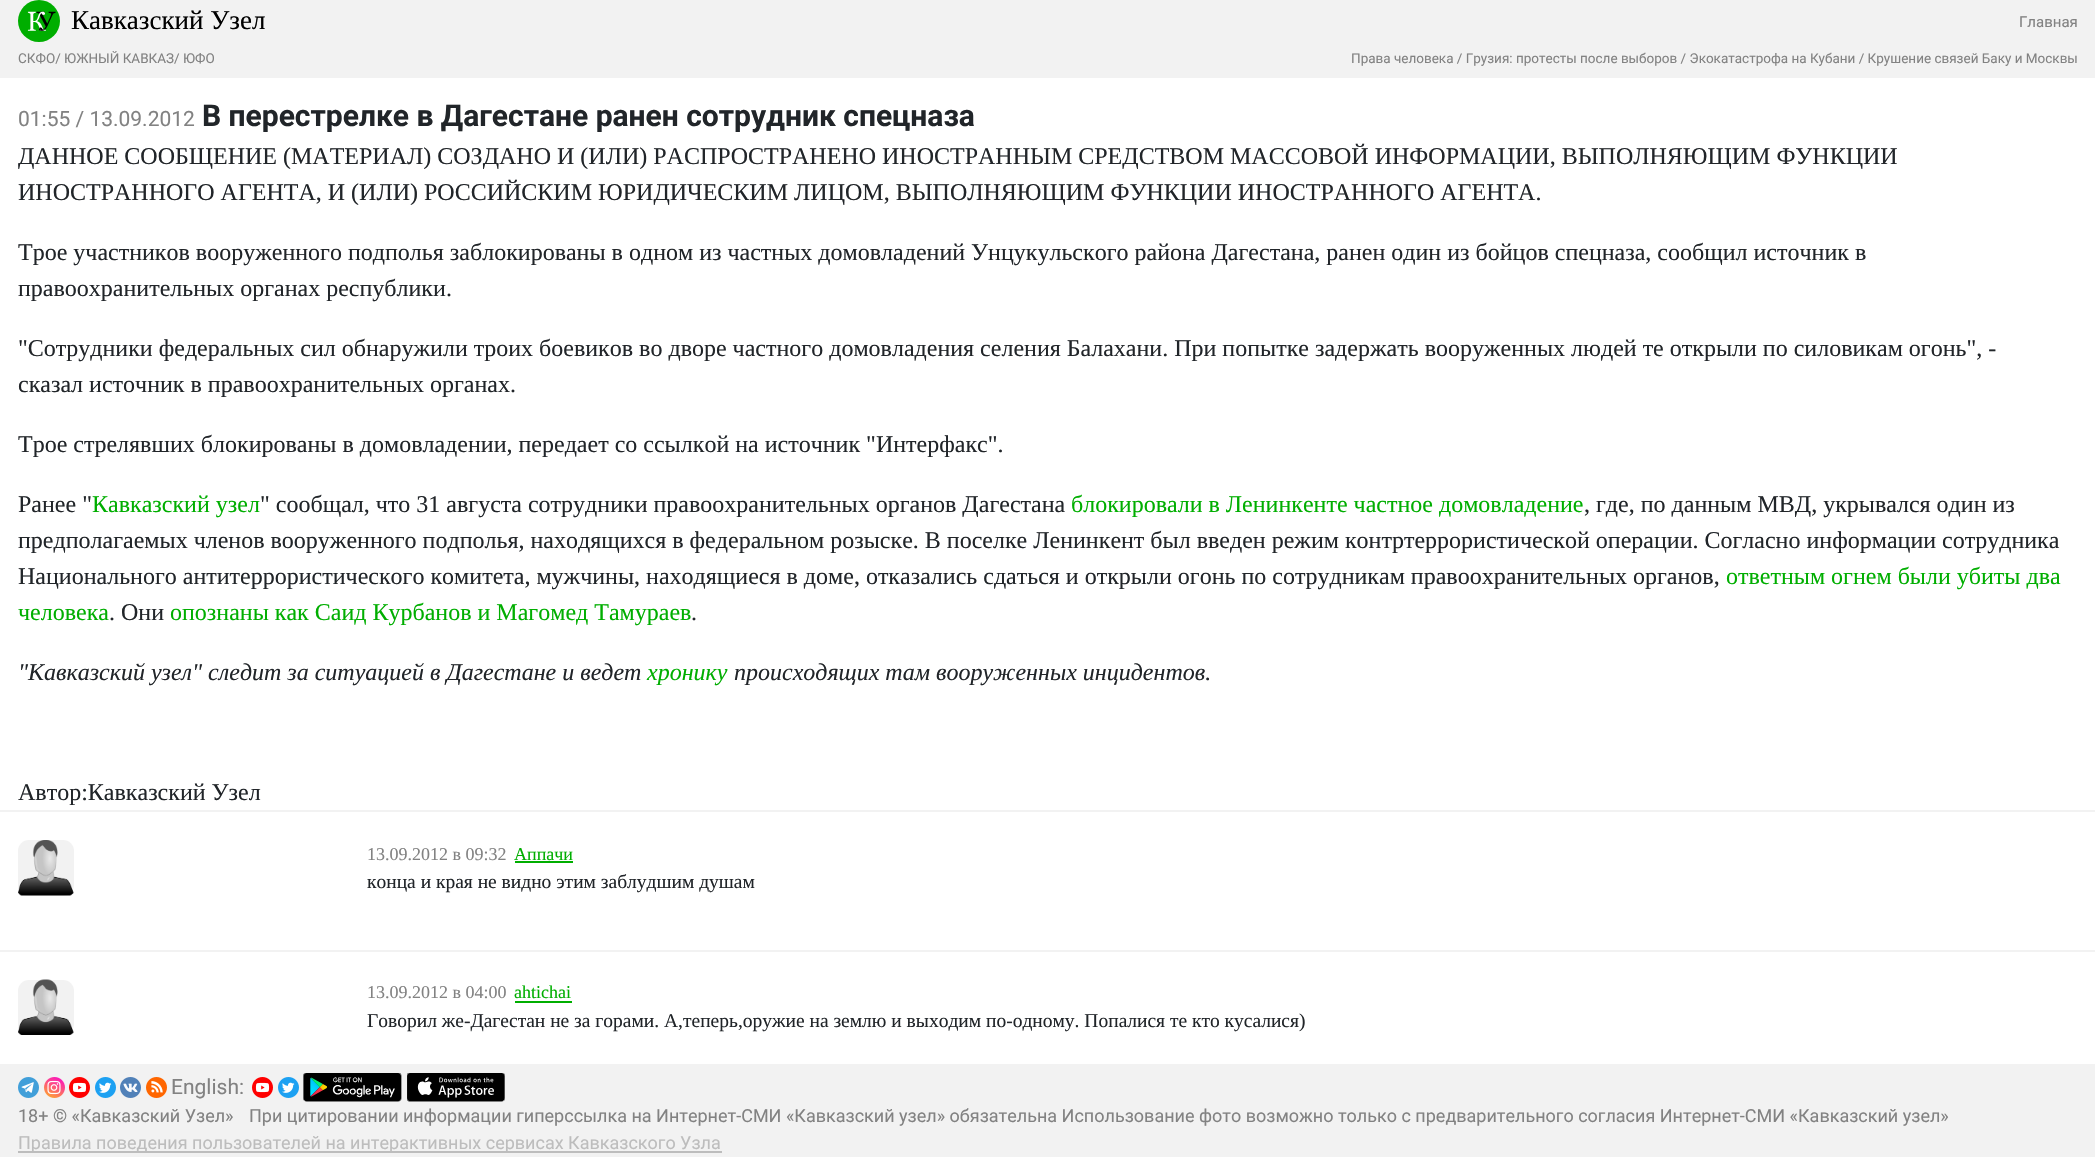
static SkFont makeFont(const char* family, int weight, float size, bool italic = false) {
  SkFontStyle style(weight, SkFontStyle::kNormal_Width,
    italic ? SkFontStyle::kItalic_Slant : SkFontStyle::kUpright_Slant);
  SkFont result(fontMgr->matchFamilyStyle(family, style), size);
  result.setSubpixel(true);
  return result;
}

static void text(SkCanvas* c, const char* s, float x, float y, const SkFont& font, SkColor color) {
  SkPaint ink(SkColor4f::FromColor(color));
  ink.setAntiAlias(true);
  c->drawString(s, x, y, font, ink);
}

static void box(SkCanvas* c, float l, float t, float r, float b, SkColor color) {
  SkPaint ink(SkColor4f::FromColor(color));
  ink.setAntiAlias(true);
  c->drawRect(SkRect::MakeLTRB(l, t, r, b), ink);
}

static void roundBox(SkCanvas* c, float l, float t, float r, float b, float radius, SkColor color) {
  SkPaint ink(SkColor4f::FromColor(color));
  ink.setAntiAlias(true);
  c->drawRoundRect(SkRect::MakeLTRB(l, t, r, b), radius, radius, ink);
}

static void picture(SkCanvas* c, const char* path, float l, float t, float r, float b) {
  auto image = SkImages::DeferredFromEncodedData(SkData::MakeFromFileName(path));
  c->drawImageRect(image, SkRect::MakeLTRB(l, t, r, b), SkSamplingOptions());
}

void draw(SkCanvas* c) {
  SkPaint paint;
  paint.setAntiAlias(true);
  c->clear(0xffffffff);
  box(c, 0, 0, 2095, 78, 0xfff2f2f2);
  picture(c, "img_01.png", 18, 0, 60, 42);
  SkFont face1 = makeFont("Liberation Serif", 400, 27);
  text(c, "Кавказский Узел", 71, 29, face1, 0xff000000);
  SkFont face2 = makeFont("Roboto", 400, 15);
  text(c, "Главная", 2019, 27, face2, 0xff828282);
  SkFont face3 = makeFont("Roboto", 400, 13.5f);
  text(c, "СКФО/ ЮЖНЫЙ КАВКАЗ/ ЮФО", 18, 63, face3, 0xff828282);
  text(c, "Права человека / Грузия: протесты после выборов / Экокатастрофа на Кубани / Крушение связей Баку и Москвы", 1351, 63, face3, 0xff828282);
  SkFont face4 = makeFont("Roboto", 400, 21);
  text(c, "01:55 / 13.09.2012", 18, 126, face4, 0xff828282);
  SkFont face5 = makeFont("Roboto", 700, 30);
  text(c, "В перестрелке в Дагестане ранен сотрудник спецназа", 202, 126, face5, 0xff212529);
  SkFont face6 = makeFont("Liberation Serif", 400, 24);
  text(c, "ДАННОЕ СООБЩЕНИЕ (МАТЕРИАЛ) СОЗДАНО И (ИЛИ) РАСПРОСТРАНЕНО ИНОСТРАННЫМ СРЕДСТВОМ МАССОВОЙ ИНФОРМАЦИИ, ВЫПОЛНЯЮЩИМ ФУНКЦИИ", 18, 164, face6, 0xff212529);
  text(c, "ИНОСТРАННОГО АГЕНТА, И (ИЛИ) РОССИЙСКИМ ЮРИДИЧЕСКИМ ЛИЦОМ, ВЫПОЛНЯЮЩИМ ФУНКЦИИ ИНОСТРАННОГО АГЕНТА.", 18, 200, face6, 0xff212529);
  text(c, "Трое участников вооруженного подполья заблокированы в одном из частных домовладений Унцукульского района Дагестана, ранен один из бойцов спецназа, сообщил источник в", 18, 260, face6, 0xff212529);
  text(c, "правоохранительных органах республики.", 18, 296, face6, 0xff212529);
  text(c, "\"Сотрудники федеральных сил обнаружили троих боевиков во дворе частного домовладения селения Балахани. При попытке задержать вооруженных людей те открыли по силовикам огонь\", -", 18, 356, face6, 0xff212529);
  text(c, "сказал источник в правоохранительных органах.", 18, 392, face6, 0xff212529);
  text(c, "Трое стрелявших блокированы в домовладении, передает со ссылкой на источник \"Интерфакс\".", 18, 452, face6, 0xff212529);
  text(c, "Ранее \"", 18, 512, face6, 0xff212529);
  text(c, "Кавказский узел", 92, 512, face6, 0xff00ae00);
  text(c, "\" сообщал, что 31 августа сотрудники правоохранительных органов Дагестана", 260, 512, face6, 0xff212529);
  text(c, "блокировали в Ленинкенте частное домовладение", 1071, 512, face6, 0xff00ae00);
  text(c, ", где, по данным МВД, укрывался один из", 1584, 512, face6, 0xff212529);
  text(c, "предполагаемых членов вооруженного подполья, находящихся в федеральном розыске. В поселке Ленинкент был введен режим контртеррористической операции. Согласно информации сотрудника", 18, 548, face6, 0xff212529);
  text(c, "Национального антитеррористического комитета, мужчины, находящиеся в доме, отказались сдаться и открыли огонь по сотрудникам правоохранительных органов,", 18, 584, face6, 0xff212529);
  text(c, "ответным огнем были убиты два", 1726, 584, face6, 0xff00ae00);
  text(c, "человека", 18, 620, face6, 0xff00ae00);
  text(c, ". Они", 109, 620, face6, 0xff212529);
  text(c, "опознаны как Саид Курбанов и Магомед Тамураев", 170, 620, face6, 0xff00ae00);
  text(c, ".", 691, 620, face6, 0xff212529);
  SkFont face7 = makeFont("Liberation Serif", 400, 24, true);
  text(c, "\"Кавказский узел\" следит за ситуацией в Дагестане и ведет", 18, 680, face7, 0xff212529);
  text(c, "хронику", 647, 680, face7, 0xff00ae00);
  text(c, "происходящих там вооруженных инцидентов.", 734, 680, face7, 0xff212529);
  text(c, "Автор:Кавказский Узел", 18, 800, face6, 0xff212529);
  box(c, 0, 810, 2095, 812, 0xfff2f2f2);
  roundBox(c, 18, 840, 74, 896, 11, 0xfff2f2f2);
  picture(c, "img_02.png", 18, 840, 74, 896);
  SkFont face8 = makeFont("Liberation Serif", 400, 18);
  text(c, "13.09.2012 в 09:32", 367, 860, face8, 0xff828282);
  text(c, "Аппачи", 514, 860, face8, 0xff00ae00);
  box(c, 515, 861, 573, 863, 0xff00ae00);
  SkFont face9 = makeFont("Liberation Serif", 400, 19.5f);
  text(c, "конца и края не видно этим заблудшим душам", 367, 888, face9, 0xff212529);
  box(c, 0, 950, 2095, 952, 0xfff2f2f2);
  roundBox(c, 18, 980, 74, 1035, 11, 0xfff2f2f2);
  picture(c, "img_03.png", 18, 979, 74, 1035);
  text(c, "13.09.2012 в 04:00", 367, 998, face8, 0xff828282);
  text(c, "ahtichai", 514, 998, face8, 0xff00ae00);
  box(c, 515, 1001, 572, 1003, 0xff00ae00);
  text(c, "Говорил же-Дагестан не за горами. А,теперь,оружие на землю и выходим по-одному. Попалися те кто кусалися)", 367, 1027, face9, 0xff212529);
  box(c, 0, 1064, 2095, 1157, 0xfff2f2f2);
  picture(c, "img_04.png", 18, 1077, 39, 1098);
  picture(c, "img_05.png", 44, 1077, 65, 1098);
  picture(c, "img_06.png", 69, 1077, 90, 1098);
  picture(c, "img_07.png", 95, 1077, 116, 1098);
  picture(c, "img_08.png", 120, 1077, 141, 1098);
  picture(c, "img_09.png", 146, 1077, 167, 1098);
  text(c, "English:", 171, 1094, face4, 0xff828282);
  picture(c, "img_06.png", 252, 1077, 273, 1098);
  picture(c, "img_07.png", 278, 1077, 299, 1098);
  picture(c, "img_10.png", 303, 1073, 402, 1102);
  picture(c, "img_11.png", 407, 1073, 505, 1102);
  SkFont face10 = makeFont("Roboto", 400, 18);
  text(c, "18+ © «Кавказский Узел»", 18, 1122, face10, 0xff828282);
  text(c, "При цитировании информации гиперссылка на Интернет-СМИ «Кавказский узел» обязательна Использование фото возможно только с предварительного согласия Интернет-СМИ «Кавказский узел»", 249, 1122, face10, 0xff828282);
  box(c, 18, 1151, 722, 1153, 0xffbdbdbd);
  text(c, "Правила поведения пользователей на интерактивных сервисах Кавказского Узла", 18, 1149, face10, 0xffbdbdbd);
}
